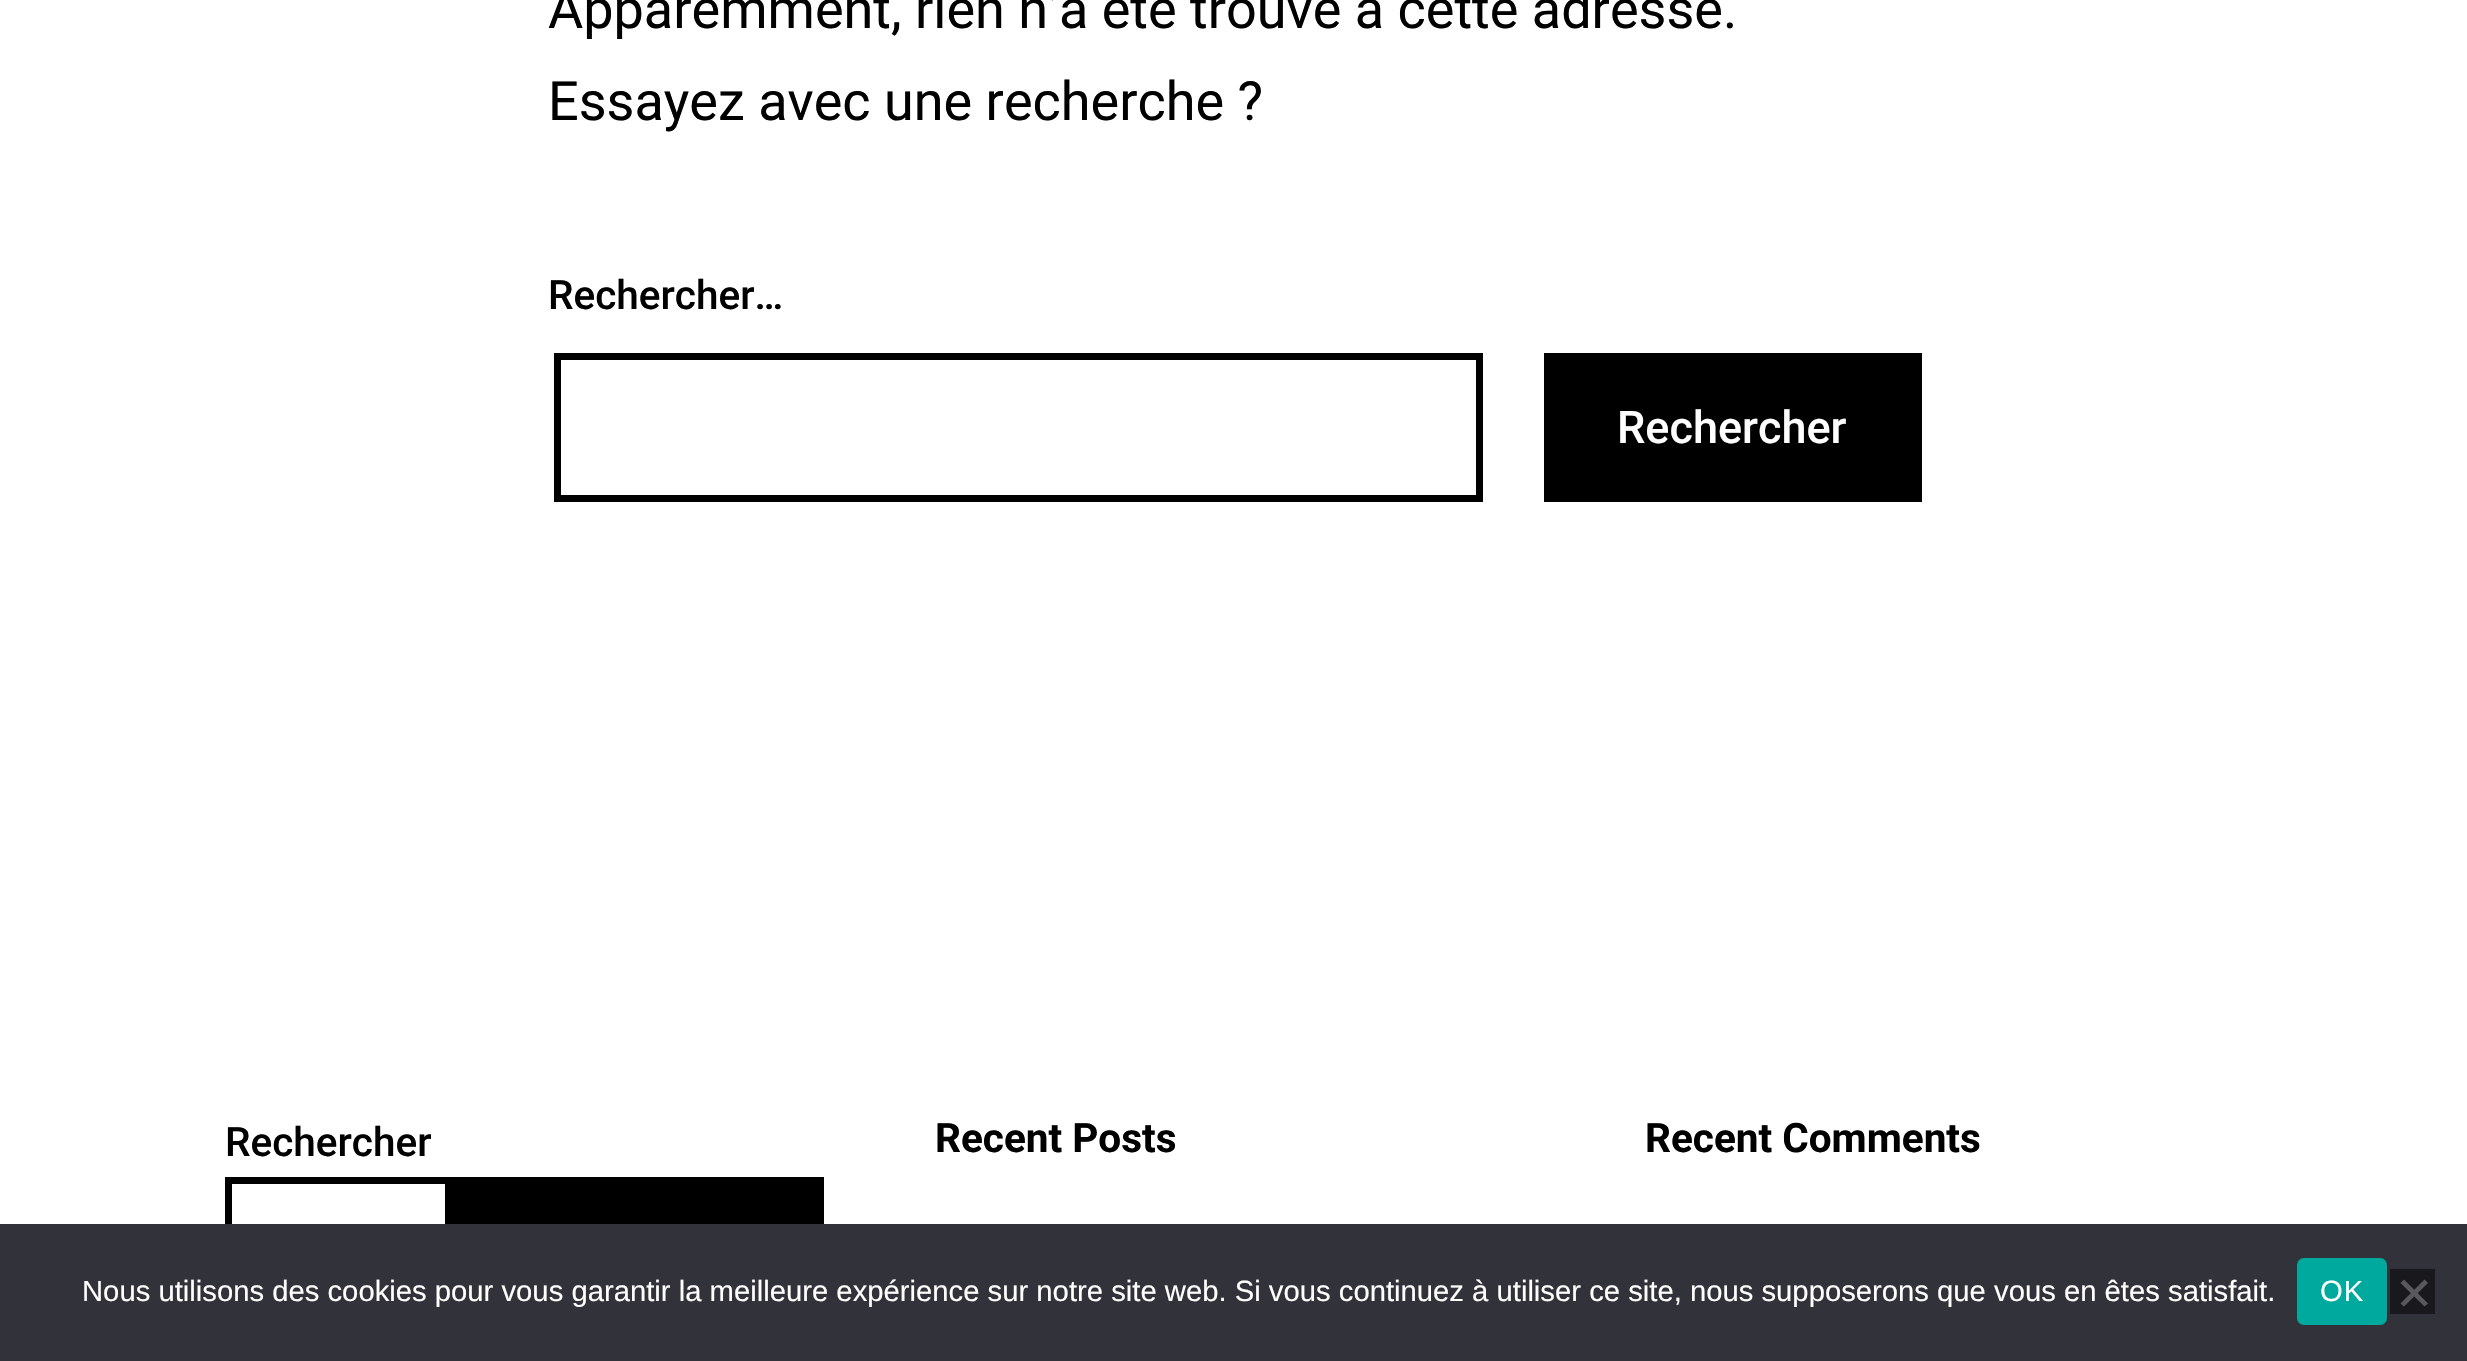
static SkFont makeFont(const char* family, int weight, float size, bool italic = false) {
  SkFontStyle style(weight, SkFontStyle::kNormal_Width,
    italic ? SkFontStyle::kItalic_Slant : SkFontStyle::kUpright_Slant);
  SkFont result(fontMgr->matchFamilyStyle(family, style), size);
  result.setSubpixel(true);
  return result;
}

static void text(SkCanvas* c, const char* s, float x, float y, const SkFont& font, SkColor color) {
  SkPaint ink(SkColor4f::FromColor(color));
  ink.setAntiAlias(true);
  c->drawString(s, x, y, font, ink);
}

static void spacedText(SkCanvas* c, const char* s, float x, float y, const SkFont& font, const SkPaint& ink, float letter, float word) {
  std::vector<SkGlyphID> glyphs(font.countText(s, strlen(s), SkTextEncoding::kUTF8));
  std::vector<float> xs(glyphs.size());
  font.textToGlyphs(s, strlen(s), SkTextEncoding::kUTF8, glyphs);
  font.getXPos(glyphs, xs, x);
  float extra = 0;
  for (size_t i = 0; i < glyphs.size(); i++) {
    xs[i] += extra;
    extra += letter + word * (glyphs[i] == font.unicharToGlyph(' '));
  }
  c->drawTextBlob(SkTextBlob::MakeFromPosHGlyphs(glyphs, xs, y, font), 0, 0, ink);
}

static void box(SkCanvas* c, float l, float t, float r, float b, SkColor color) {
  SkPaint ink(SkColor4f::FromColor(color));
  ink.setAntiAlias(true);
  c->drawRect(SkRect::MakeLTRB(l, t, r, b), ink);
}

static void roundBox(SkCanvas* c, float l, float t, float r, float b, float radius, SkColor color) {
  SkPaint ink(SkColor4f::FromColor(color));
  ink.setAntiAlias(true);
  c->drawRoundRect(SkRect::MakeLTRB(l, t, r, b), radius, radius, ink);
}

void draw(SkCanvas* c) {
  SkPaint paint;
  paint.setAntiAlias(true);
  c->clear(0xffffffff);
  SkFont face1 = makeFont("Roboto", 400, 54);
  text(c, "Apparemment, rien n’a été trouvé à cette adresse.", 548, 28, face1, 0xff000000);
  text(c, "Essayez avec une recherche ?", 548, 120, face1, 0xff000000);
  SkFont face2 = makeFont("Roboto", 500, 40.5f);
  text(c, "Rechercher…", 548, 309, face2, 0xff000000);
  paint.setStyle(SkPaint::kStroke_Style);
  paint.setStrokeWidth(7);
  paint.setColor(0xff000000);
  c->drawRect(SkRect::MakeLTRB(557.5f, 356.5f, 1479.5f, 498.5f), paint);
  box(c, 1544, 353, 1922, 502, 0xff000000);
  SkFont face3 = makeFont("Roboto", 500, 45);
  text(c, "Rechercher", 1617, 443, face3, 0xffffffff);
  text(c, "Rechercher", 225, 1156, face2, 0xff000000);
  c->drawRect(SkRect::MakeLTRB(228.5f, 1180.5f, 448.5f, 1301.5f), paint);
  box(c, 452, 1177, 824, 1224, 0xff000000);
  SkFont face4 = makeFont("Roboto", 700, 40.5f);
  text(c, "Recent Posts", 935, 1152, face4, 0xff000000);
  text(c, "Recent Comments", 1645, 1152, face4, 0xff000000);
  box(c, 0, 1224, 2467, 1361, 0xff32323a);
  SkFont face5 = makeFont("Liberation Sans", 400, 29.25f);
  text(c, "Nous utilisons des cookies pour vous garantir la meilleure expérience sur notre site web. Si vous continuez à utiliser ce site, nous supposerons que vous en êtes satisfait.", 82, 1301, face5, 0xffffffff);
  roundBox(c, 2297, 1258, 2387, 1325, 7, 0xff00a99d);
  paint.setStyle(SkPaint::kFill_Style);
  paint.setColor(0xffffffff);
  spacedText(c, "OK", 2320, 1301, face5, paint, 1, 0);
  box(c, 2390, 1269, 2435, 1314, 0xff19191d);
  paint.setColor(0xff59595d);
  c->drawPath(SkPathBuilder().moveTo(2424.5f, 1279.5f).lineTo(2428, 1283).lineTo(2404, 1306.5f).lineTo(2400.5f, 1303.5f).close().detach(), paint);
  c->drawPath(SkPathBuilder().moveTo(2400.5f, 1283).lineTo(2404, 1279.5f).lineTo(2428, 1303.5f).lineTo(2424.5f, 1306.5f).close().detach(), paint);
}
